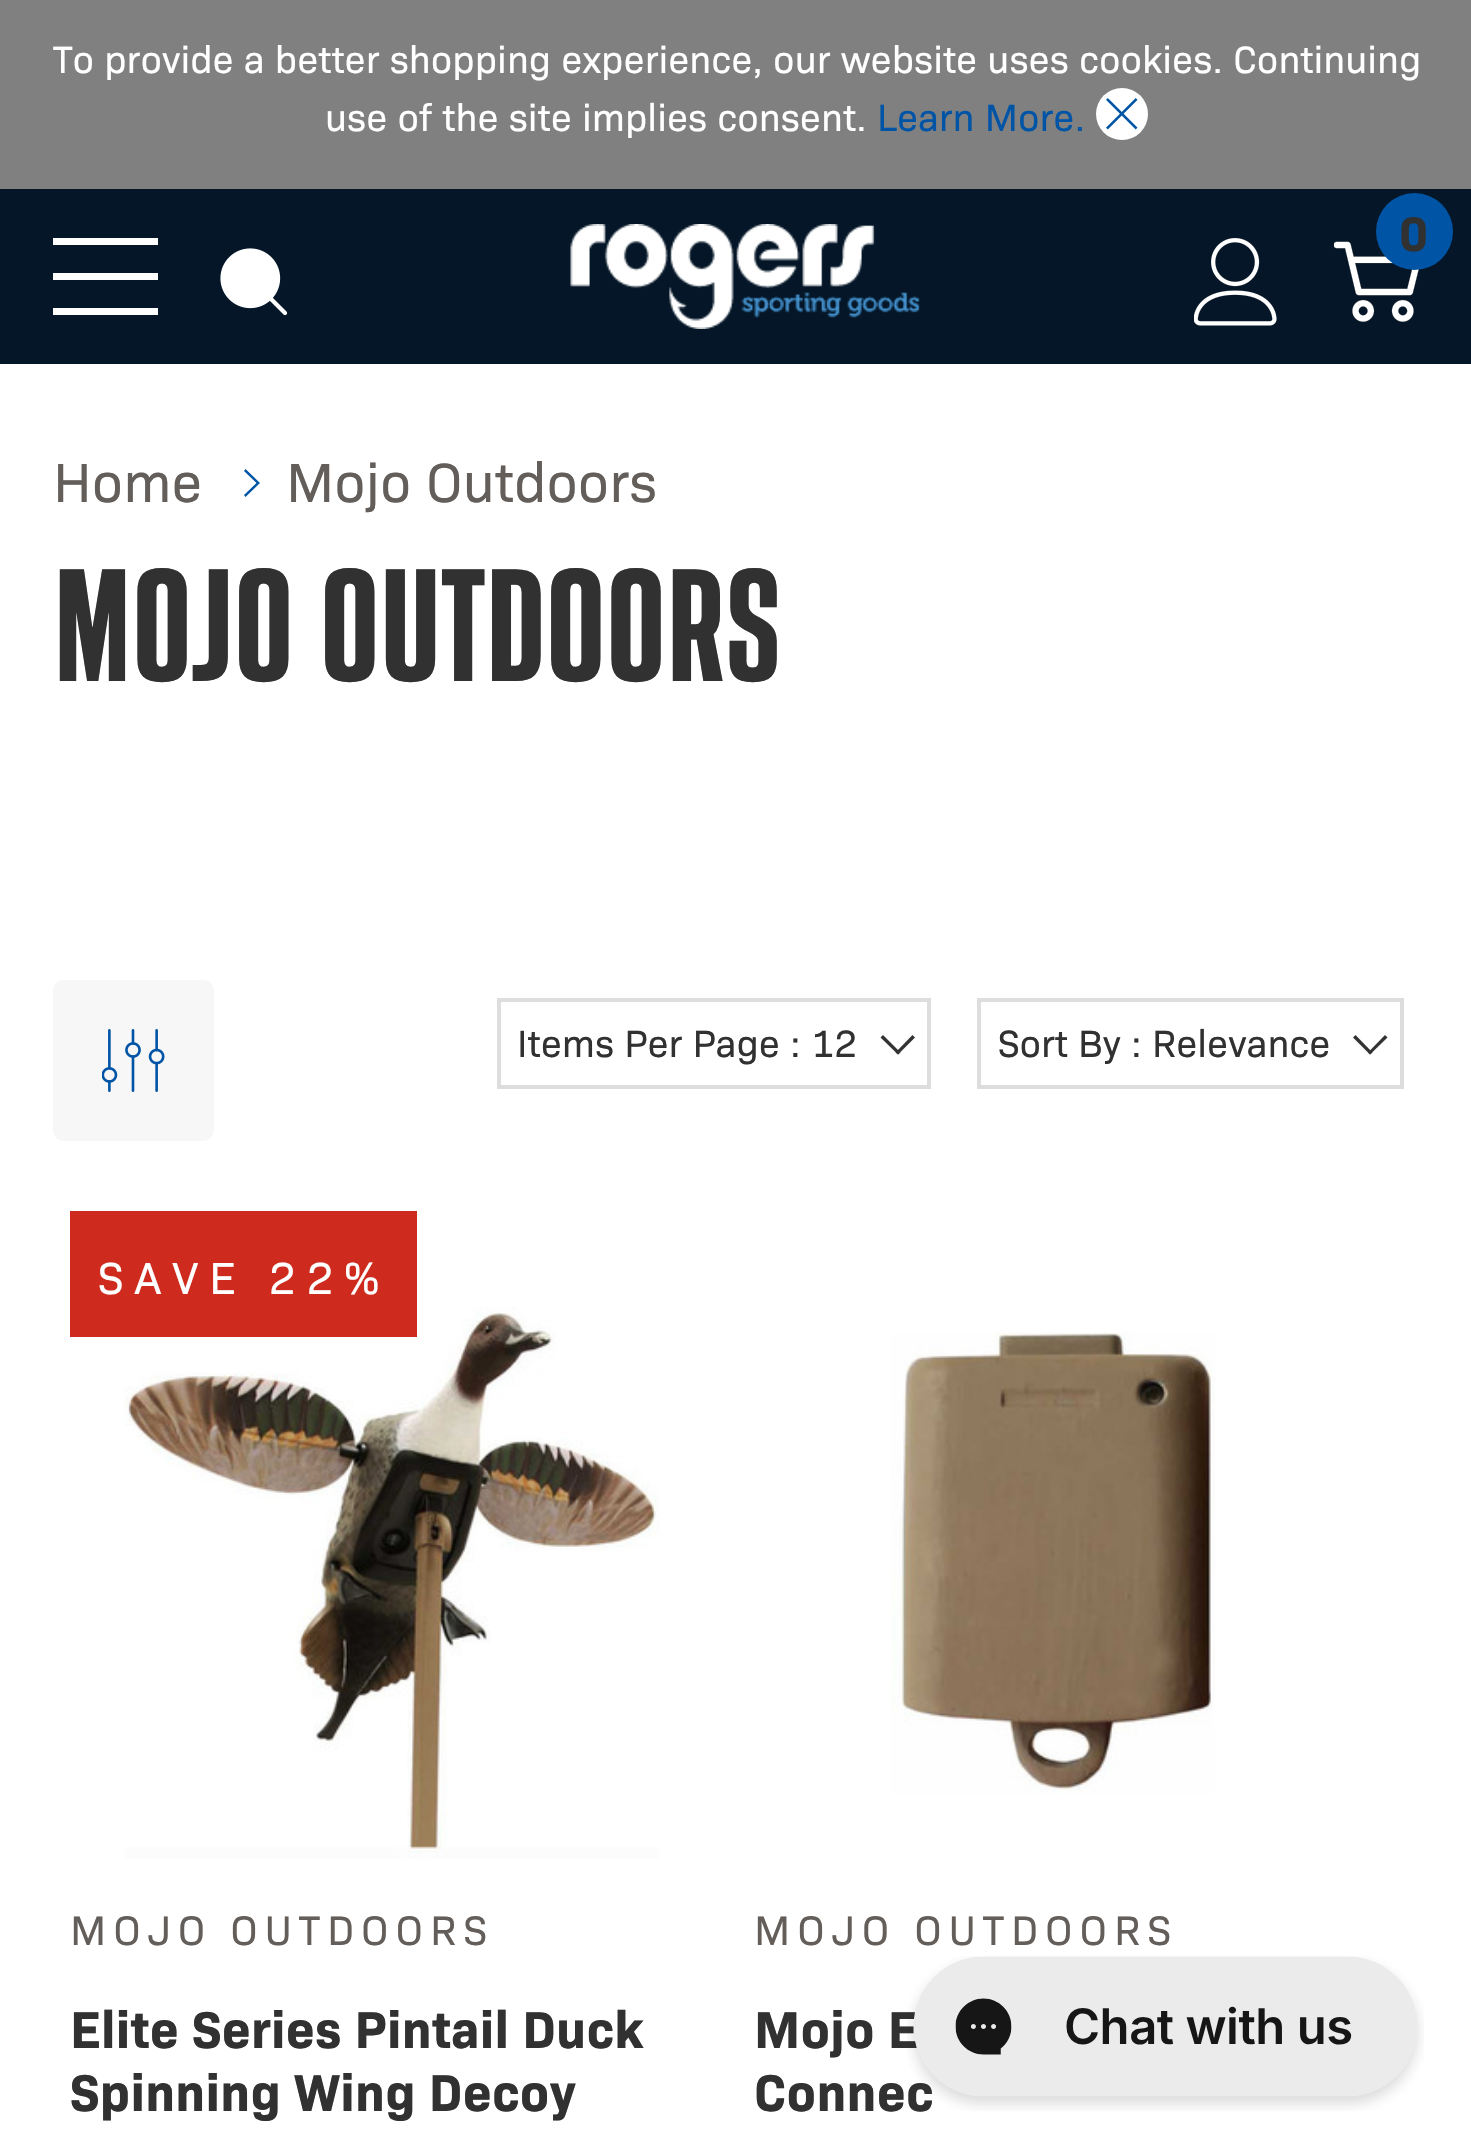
static SkFont makeFont(const char* family, int weight, float size, bool italic = false) {
  SkFontStyle style(weight, SkFontStyle::kNormal_Width,
    italic ? SkFontStyle::kItalic_Slant : SkFontStyle::kUpright_Slant);
  SkFont result(fontMgr->matchFamilyStyle(family, style), size);
  result.setSubpixel(true);
  return result;
}

static void text(SkCanvas* c, const char* s, float x, float y, const SkFont& font, SkColor color) {
  SkPaint ink(SkColor4f::FromColor(color));
  ink.setAntiAlias(true);
  c->drawString(s, x, y, font, ink);
}

static void spacedText(SkCanvas* c, const char* s, float x, float y, const SkFont& font, const SkPaint& ink, float letter, float word) {
  std::vector<SkGlyphID> glyphs(font.countText(s, strlen(s), SkTextEncoding::kUTF8));
  std::vector<float> xs(glyphs.size());
  font.textToGlyphs(s, strlen(s), SkTextEncoding::kUTF8, glyphs);
  font.getXPos(glyphs, xs, x);
  float extra = 0;
  for (size_t i = 0; i < glyphs.size(); i++) {
    xs[i] += extra;
    extra += letter + word * (glyphs[i] == font.unicharToGlyph(' '));
  }
  c->drawTextBlob(SkTextBlob::MakeFromPosHGlyphs(glyphs, xs, y, font), 0, 0, ink);
}

static void box(SkCanvas* c, float l, float t, float r, float b, SkColor color) {
  SkPaint ink(SkColor4f::FromColor(color));
  ink.setAntiAlias(true);
  c->drawRect(SkRect::MakeLTRB(l, t, r, b), ink);
}

static void roundBox(SkCanvas* c, float l, float t, float r, float b, float radius, SkColor color) {
  SkPaint ink(SkColor4f::FromColor(color));
  ink.setAntiAlias(true);
  c->drawRoundRect(SkRect::MakeLTRB(l, t, r, b), radius, radius, ink);
}

static void picture(SkCanvas* c, const char* path, float l, float t, float r, float b) {
  auto image = SkImages::DeferredFromEncodedData(SkData::MakeFromFileName(path));
  c->drawImageRect(image, SkRect::MakeLTRB(l, t, r, b), SkSamplingOptions());
}

void draw(SkCanvas* c) {
  SkPaint paint;
  paint.setAntiAlias(true);
  c->clear(0xffffffff);
  box(c, 0, 189, 1471, 364, 0xff041627);
  box(c, 0, 0, 1471, 189, 0xff808080);
  SkFont face1 = makeFont("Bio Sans", 400, 38.5f);
  text(c, "To provide a better shopping experience, our website uses cookies. Continuing", 53, 73, face1, 0xffffffff);
  text(c, "use of the site implies consent.", 325, 131, face1, 0xffffffff);
  text(c, "Learn More.", 877, 131, face1, 0xff0054a6);
  paint.setColor(0xffffffff);
  c->drawCircle(1122, 114, 26, paint);
  picture(c, "img_01.png", 1106, 98, 1138, 130);
  box(c, 53, 273, 158, 280, 0xffffffff);
  box(c, 53, 238, 158, 245, 0xffffffff);
  box(c, 53, 308, 158, 315, 0xffffffff);
  picture(c, "img_02.png", 220, 248, 288, 316);
  picture(c, "img_03.png", 570, 224, 920, 329);
  picture(c, "img_04.png", 1334, 241, 1419, 322);
  paint.setColor(0xff0054a6);
  c->drawCircle(1414.5f, 231.5f, 38.5f, paint);
  SkFont face2 = makeFont("Bio Sans", 700, 49);
  text(c, "0", 1399, 251, face2, 0xff303130);
  picture(c, "img_05.png", 1194, 238, 1277, 326);
  SkFont face3 = makeFont("Bio Sans", 400, 56);
  text(c, "Home", 53, 502, face3, 0xff635e5a);
  c->drawPath(SkPathBuilder().moveTo(245.5f, 469).lineTo(244, 471).lineTo(256.5f, 483).lineTo(244, 495).lineTo(245.5f, 497).lineTo(260, 483).close().detach(), paint);
  text(c, "Mojo Outdoors", 286, 502, face3, 0xff635e5a);
  SkFont face4 = makeFont("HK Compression", 900, 147);
  text(c, "Mojo Outdoors", 53, 681, face4, 0xff303130);
  roundBox(c, 53, 980, 214, 1141, 11, 0xfff7f7f7);
  picture(c, "img_06.png", 102, 1029, 165, 1092);
  paint.setStyle(SkPaint::kStroke_Style);
  paint.setStrokeWidth(4);
  paint.setColor(0xffdddddd);
  c->drawRect(SkRect::MakeLTRB(499, 1000, 929, 1087), paint);
  text(c, "Items Per Page : 12", 517, 1057, face1, 0xff303130);
  paint.setStyle(SkPaint::kFill_Style);
  paint.setColor(0xff333333);
  c->drawPath(SkPathBuilder().moveTo(912.5f, 1035).lineTo(915, 1037.5f).lineTo(898, 1054.5f).lineTo(895.5f, 1052.5f).close().detach(), paint);
  c->drawPath(SkPathBuilder().moveTo(883, 1035).lineTo(900.5f, 1052.5f).lineTo(898, 1054.5f).lineTo(880.5f, 1037.5f).close().detach(), paint);
  paint.setStyle(SkPaint::kStroke_Style);
  paint.setColor(0xffdddddd);
  c->drawRect(SkRect::MakeLTRB(979, 1000, 1402, 1087), paint);
  text(c, "Sort By : Relevance", 998, 1057, face1, 0xff303130);
  paint.setStyle(SkPaint::kFill_Style);
  paint.setColor(0xff333333);
  c->drawPath(SkPathBuilder().moveTo(1385, 1035).lineTo(1387.5f, 1037.5f).lineTo(1370, 1054.5f).lineTo(1368, 1052.5f).close().detach(), paint);
  c->drawPath(SkPathBuilder().moveTo(1355.5f, 1035).lineTo(1372.5f, 1052.5f).lineTo(1370, 1054.5f).lineTo(1353, 1037.5f).close().detach(), paint);
  picture(c, "img_07.png", 124, 1307, 660, 1859);
  box(c, 70, 1211, 417, 1337, 0xffce2b1e);
  SkFont face5 = makeFont("Bio Sans", 400, 45.5f);
  paint.setColor(0xffffffff);
  spacedText(c, "SAVE 22%", 98, 1294, face5, paint, 10.5f, 0);
  SkFont face6 = makeFont("Bio Sans", 400, 42);
  paint.setColor(0xff635e5a);
  spacedText(c, "MOJO OUTDOORS", 70, 1945, face6, paint, 7, 0);
  SkFont face7 = makeFont("Bio Sans", 700, 52.5f);
  paint.setColor(0xff303130);
  spacedText(c, "Elite Series Pintail Duck", 70, 2048, face7, paint, 0.25f, 0);
  c->save();
  c->clipRect(SkRect::MakeLTRB(70, 1995, 721, 2121));
  spacedText(c, "Spinning Wing Decoy", 70, 2111, face7, paint, 0.25f, 0);
  c->restore();
  picture(c, "img_08.png", 891, 1332, 1215, 1794);
  paint.setColor(0xff635e5a);
  spacedText(c, "MOJO OUTDOORS", 754, 1945, face6, paint, 7, 0);
  paint.setColor(0xff303130);
  spacedText(c, "Mojo E", 754, 2048, face7, paint, 0.25f, 0);
  spacedText(c, "Connec", 754, 2111, face7, paint, 0.25f, 0);
  picture(c, "img_09.png", 907, 1956, 1424, 2111);
}
